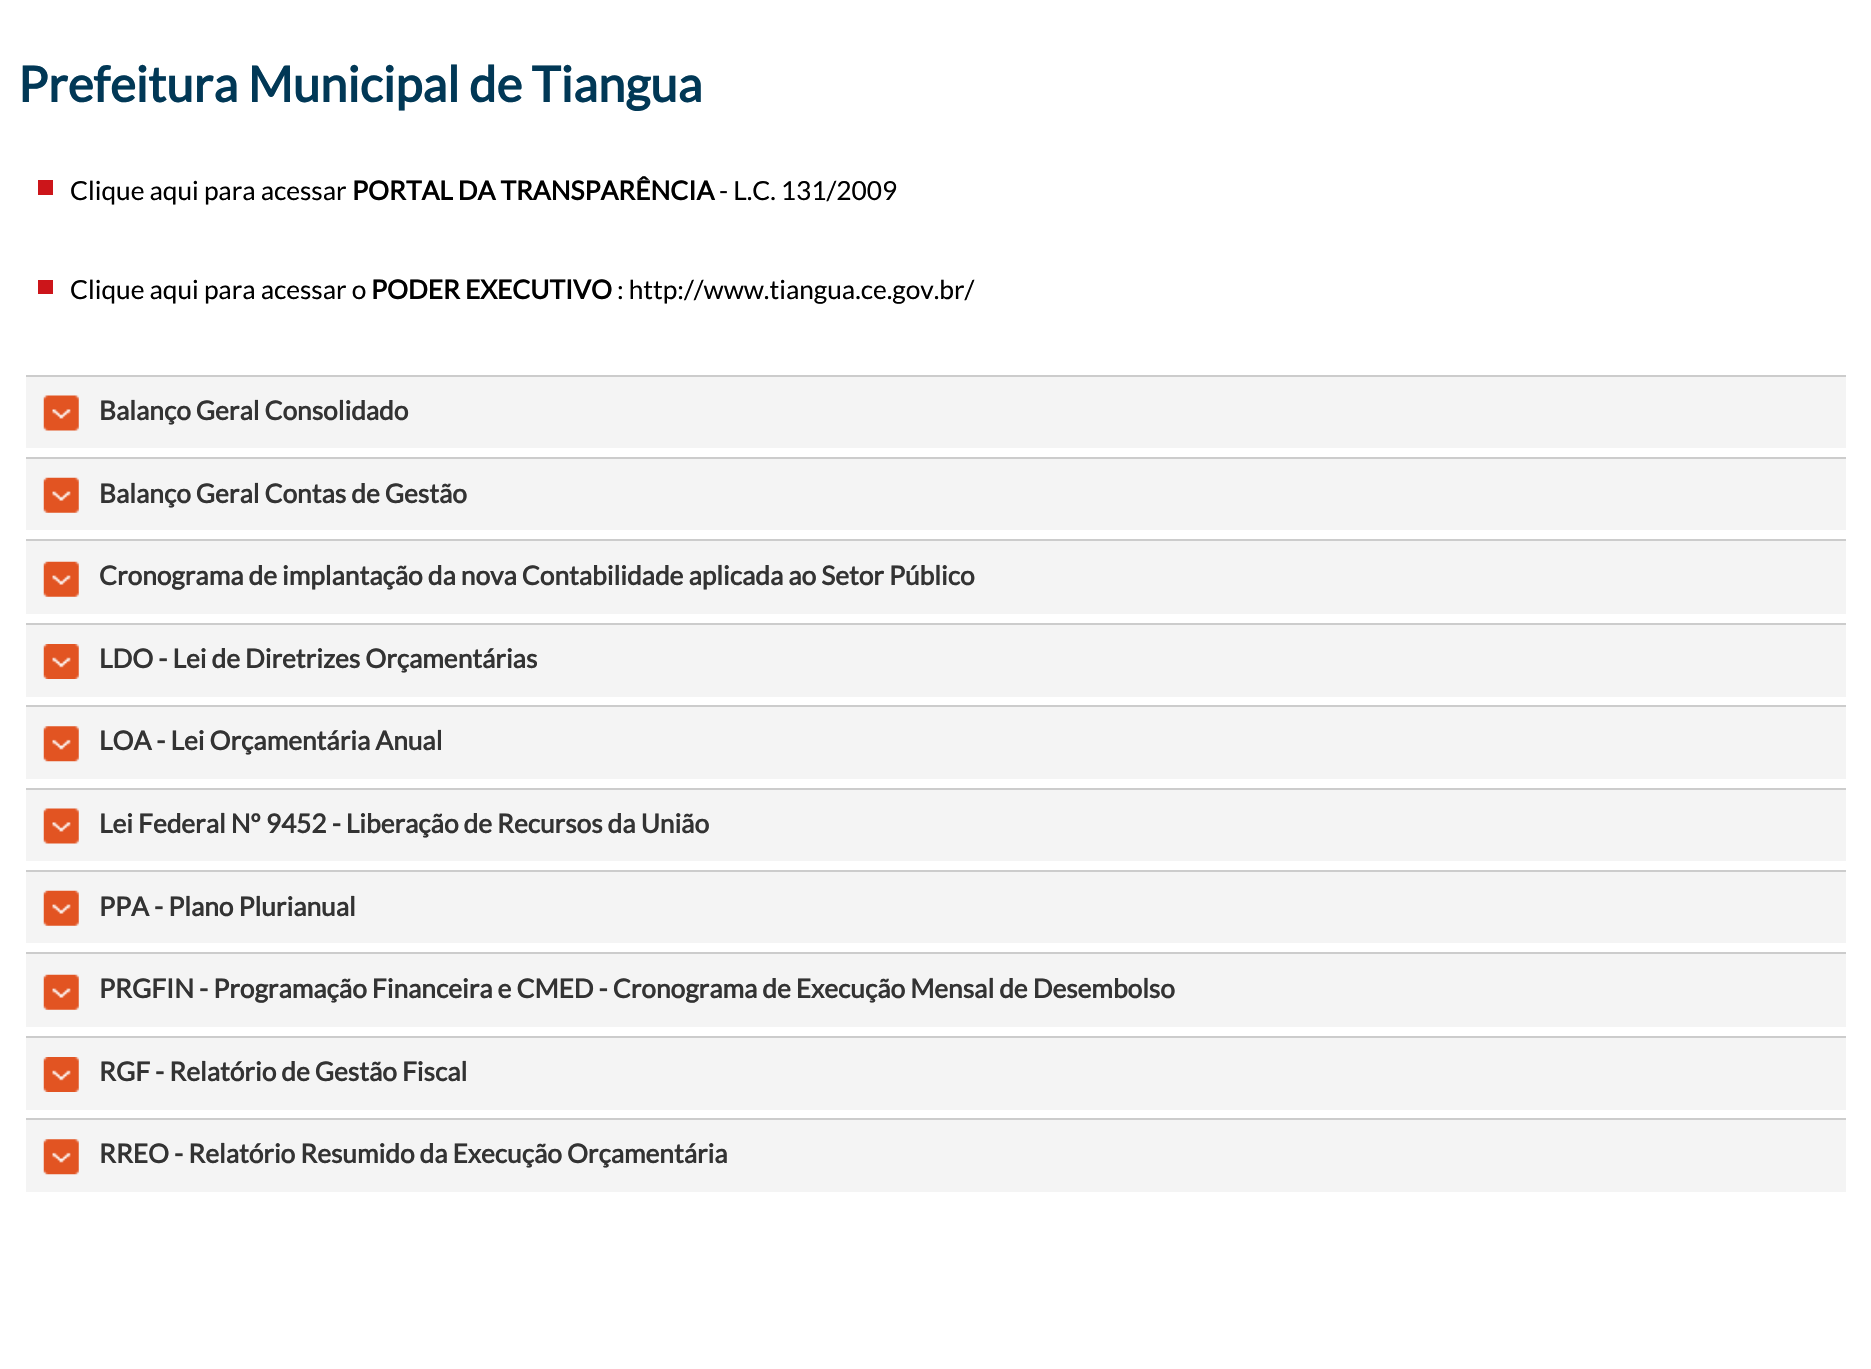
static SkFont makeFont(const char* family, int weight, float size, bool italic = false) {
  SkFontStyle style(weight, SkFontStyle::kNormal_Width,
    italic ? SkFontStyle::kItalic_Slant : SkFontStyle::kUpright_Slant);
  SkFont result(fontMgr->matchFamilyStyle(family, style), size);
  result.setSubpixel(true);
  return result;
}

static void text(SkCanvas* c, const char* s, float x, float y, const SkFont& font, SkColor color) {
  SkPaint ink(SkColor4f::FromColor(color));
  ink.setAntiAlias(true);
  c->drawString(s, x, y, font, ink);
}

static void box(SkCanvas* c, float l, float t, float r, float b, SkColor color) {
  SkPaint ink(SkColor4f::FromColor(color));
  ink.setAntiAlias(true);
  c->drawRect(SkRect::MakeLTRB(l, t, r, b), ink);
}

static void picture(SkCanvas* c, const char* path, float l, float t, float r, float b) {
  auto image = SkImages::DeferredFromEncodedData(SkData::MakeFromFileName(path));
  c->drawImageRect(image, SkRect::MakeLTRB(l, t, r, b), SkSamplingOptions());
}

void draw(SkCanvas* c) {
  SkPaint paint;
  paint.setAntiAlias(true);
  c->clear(0xffffffff);
  SkFont face1 = makeFont("Lato", 700, 49);
  text(c, "Prefeitura Municipal de Tiangua", 18, 102, face1, 0xff013856);
  box(c, 38, 180, 53, 195, 0xffcc151a);
  SkFont face2 = makeFont("Lato", 400, 26.25f);
  text(c, "Clique aqui para acessar", 70, 200, face2, 0xff000000);
  SkFont face3 = makeFont("Lato", 700, 26.25f);
  text(c, "PORTAL DA TRANSPARÊNCIA", 352, 200, face3, 0xff000000);
  text(c, "- L.C. 131/2009", 719, 200, face2, 0xff000000);
  box(c, 38, 280, 53, 294, 0xffcc151a);
  text(c, "Clique aqui para acessar o", 70, 299, face2, 0xff000000);
  text(c, "PODER EXECUTIVO", 371, 299, face3, 0xff000000);
  text(c, ": http://www.tiangua.ce.gov.br/", 617, 299, face2, 0xff000000);
  box(c, 26, 377, 1846, 448, 0xfff4f4f4);
  box(c, 26, 375, 1846, 377, 0xffcccccc);
  picture(c, "img_01.png", 43, 395, 79, 431);
  text(c, "Balanço Geral Consolidado", 99, 420, face3, 0xff333333);
  box(c, 26, 459, 1846, 530, 0xfff4f4f4);
  box(c, 26, 457, 1846, 459, 0xffcccccc);
  picture(c, "img_02.png", 43, 477, 79, 513);
  text(c, "Balanço Geral Contas de Gestão", 99, 503, face3, 0xff333333);
  box(c, 26, 541, 1846, 614, 0xfff4f4f4);
  box(c, 26, 539, 1846, 541, 0xffcccccc);
  picture(c, "img_02.png", 43, 561, 79, 597);
  text(c, "Cronograma de implantação da nova Contabilidade aplicada ao Setor Público", 99, 585, face3, 0xff333333);
  box(c, 26, 625, 1846, 697, 0xfff4f4f4);
  box(c, 26, 623, 1846, 625, 0xffcccccc);
  picture(c, "img_03.png", 43, 644, 79, 679);
  text(c, "LDO - Lei de Diretrizes Orçamentárias", 99, 668, face3, 0xff333333);
  box(c, 26, 707, 1846, 779, 0xfff4f4f4);
  box(c, 26, 705, 1846, 707, 0xffcccccc);
  picture(c, "img_04.png", 43, 726, 79, 762);
  text(c, "LOA - Lei Orçamentária Anual", 99, 750, face3, 0xff333333);
  box(c, 26, 790, 1846, 861, 0xfff4f4f4);
  box(c, 26, 788, 1846, 790, 0xffcccccc);
  picture(c, "img_01.png", 43, 808, 79, 844);
  text(c, "Lei Federal Nº 9452 - Liberação de Recursos da União", 99, 833, face3, 0xff333333);
  box(c, 26, 872, 1846, 943, 0xfff4f4f4);
  box(c, 26, 870, 1846, 872, 0xffcccccc);
  picture(c, "img_02.png", 43, 890, 79, 926);
  text(c, "PPA - Plano Plurianual", 99, 916, face3, 0xff333333);
  box(c, 26, 954, 1846, 1027, 0xfff4f4f4);
  box(c, 26, 952, 1846, 954, 0xffcccccc);
  picture(c, "img_02.png", 43, 974, 79, 1010);
  text(c, "PRGFIN - Programação Financeira e CMED - Cronograma de Execução Mensal de Desembolso", 99, 998, face3, 0xff333333);
  box(c, 26, 1038, 1846, 1110, 0xfff4f4f4);
  box(c, 26, 1036, 1846, 1038, 0xffcccccc);
  picture(c, "img_03.png", 43, 1057, 79, 1092);
  text(c, "RGF - Relatório de Gestão Fiscal", 99, 1081, face3, 0xff333333);
  box(c, 26, 1120, 1846, 1192, 0xfff4f4f4);
  box(c, 26, 1118, 1846, 1120, 0xffcccccc);
  picture(c, "img_04.png", 43, 1139, 79, 1175);
  text(c, "RREO - Relatório Resumido da Execução Orçamentária", 99, 1163, face3, 0xff333333);
}
